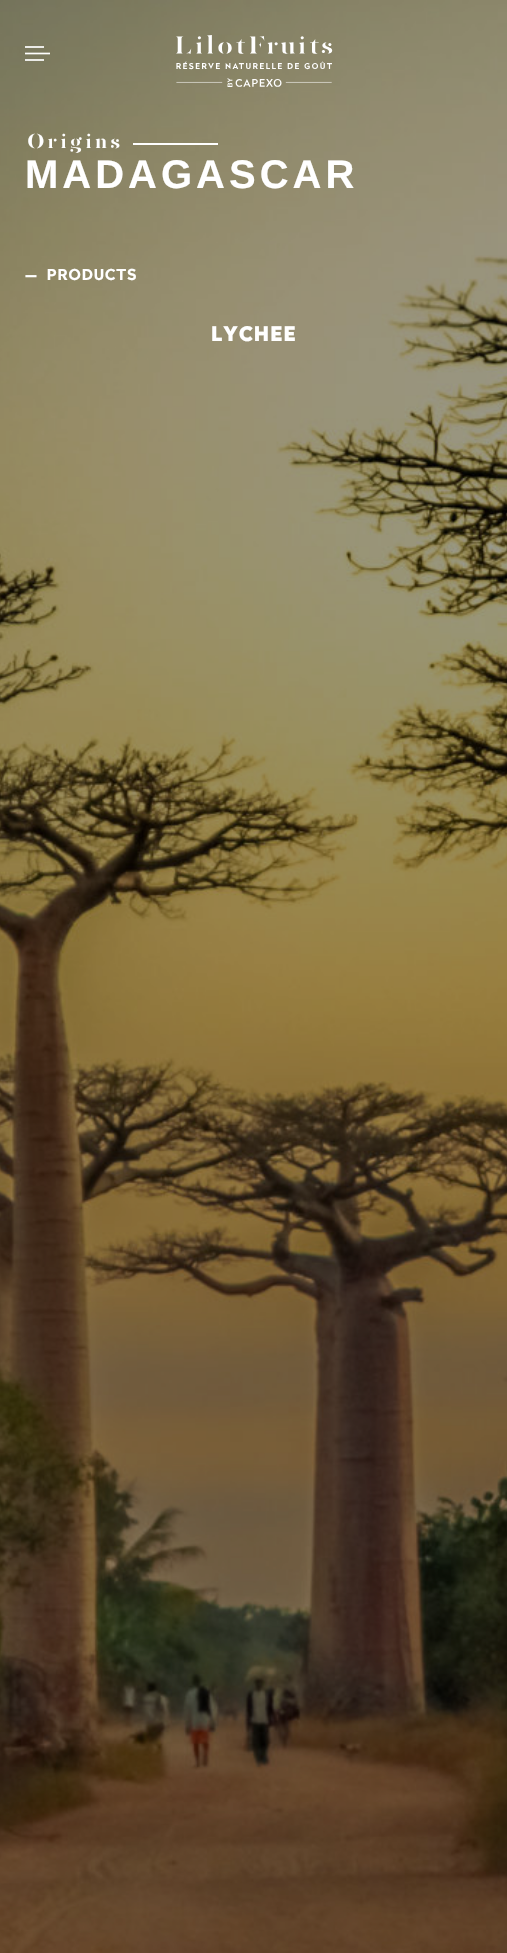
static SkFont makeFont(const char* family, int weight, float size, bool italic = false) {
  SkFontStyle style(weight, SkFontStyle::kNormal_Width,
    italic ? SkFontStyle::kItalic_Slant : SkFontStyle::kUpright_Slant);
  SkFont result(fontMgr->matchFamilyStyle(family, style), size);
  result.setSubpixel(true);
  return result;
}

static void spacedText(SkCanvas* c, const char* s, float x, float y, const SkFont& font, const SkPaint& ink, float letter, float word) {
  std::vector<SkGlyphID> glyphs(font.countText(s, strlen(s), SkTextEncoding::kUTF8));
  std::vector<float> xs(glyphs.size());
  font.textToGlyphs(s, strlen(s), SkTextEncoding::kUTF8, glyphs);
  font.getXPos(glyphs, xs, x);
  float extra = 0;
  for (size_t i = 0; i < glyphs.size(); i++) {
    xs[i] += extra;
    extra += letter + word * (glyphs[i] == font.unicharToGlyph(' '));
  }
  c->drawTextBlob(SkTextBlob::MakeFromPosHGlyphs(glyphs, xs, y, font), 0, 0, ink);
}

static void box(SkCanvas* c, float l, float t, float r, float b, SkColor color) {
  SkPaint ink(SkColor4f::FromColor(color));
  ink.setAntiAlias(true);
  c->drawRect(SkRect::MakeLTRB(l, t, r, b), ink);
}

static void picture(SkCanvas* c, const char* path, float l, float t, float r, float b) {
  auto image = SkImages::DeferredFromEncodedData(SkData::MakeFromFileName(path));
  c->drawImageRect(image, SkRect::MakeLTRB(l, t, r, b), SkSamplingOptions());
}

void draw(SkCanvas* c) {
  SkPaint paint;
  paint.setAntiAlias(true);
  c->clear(0xffffffff);
  picture(c, "img_02.png", 0, 0, 507, 1953);
  paint.setStyle(SkPaint::kStroke_Style);
  paint.setStrokeWidth(1.7f);
  paint.setColor(0xffffffff);
  c->drawPath(SkPathBuilder().moveTo(25, 53.5f).lineTo(50, 53.5f).detach(), paint);
  box(c, 25, 46, 44, 48, 0xffebebe7);
  box(c, 25, 59, 44, 61, 0xffebebe7);
  picture(c, "img_01.png", 176, 35, 333, 87);
  SkFont face1 = makeFont("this", 400, 20);
  paint.setStyle(SkPaint::kFill_Style);
  spacedText(c, "Origins", 27, 148, face1, paint, 2, 0);
  box(c, 133, 143, 218, 145, 0xffffffff);
  SkFont face2 = makeFont("Liberation Sans", 700, 40);
  spacedText(c, "MADAGASCAR", 25, 188, face2, paint, 4, 0);
  SkFont face3 = makeFont("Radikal", 700, 15);
  spacedText(c, "—  PRODUCTS", 25, 280, face3, paint, 1, 0);
  SkFont face4 = makeFont("Radikal", 900, 20);
  spacedText(c, "LYCHEE", 211, 341, face4, paint, 1.25f, 0);
}
